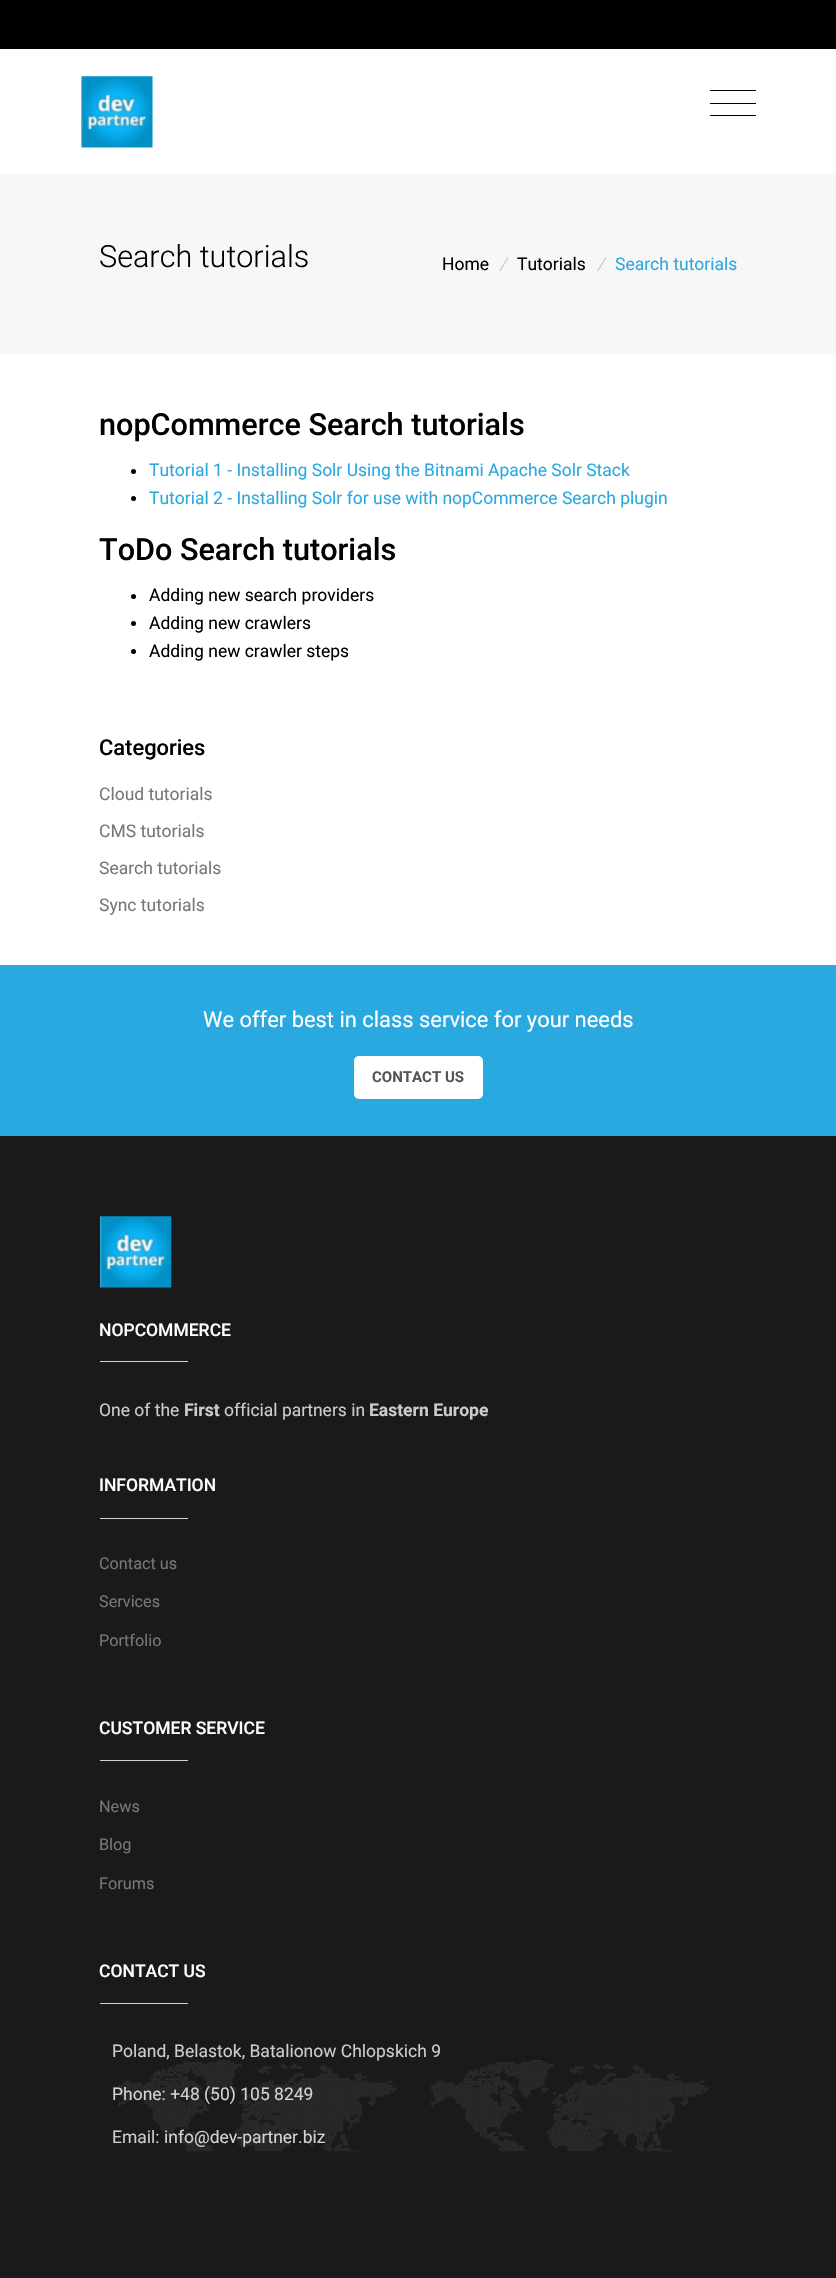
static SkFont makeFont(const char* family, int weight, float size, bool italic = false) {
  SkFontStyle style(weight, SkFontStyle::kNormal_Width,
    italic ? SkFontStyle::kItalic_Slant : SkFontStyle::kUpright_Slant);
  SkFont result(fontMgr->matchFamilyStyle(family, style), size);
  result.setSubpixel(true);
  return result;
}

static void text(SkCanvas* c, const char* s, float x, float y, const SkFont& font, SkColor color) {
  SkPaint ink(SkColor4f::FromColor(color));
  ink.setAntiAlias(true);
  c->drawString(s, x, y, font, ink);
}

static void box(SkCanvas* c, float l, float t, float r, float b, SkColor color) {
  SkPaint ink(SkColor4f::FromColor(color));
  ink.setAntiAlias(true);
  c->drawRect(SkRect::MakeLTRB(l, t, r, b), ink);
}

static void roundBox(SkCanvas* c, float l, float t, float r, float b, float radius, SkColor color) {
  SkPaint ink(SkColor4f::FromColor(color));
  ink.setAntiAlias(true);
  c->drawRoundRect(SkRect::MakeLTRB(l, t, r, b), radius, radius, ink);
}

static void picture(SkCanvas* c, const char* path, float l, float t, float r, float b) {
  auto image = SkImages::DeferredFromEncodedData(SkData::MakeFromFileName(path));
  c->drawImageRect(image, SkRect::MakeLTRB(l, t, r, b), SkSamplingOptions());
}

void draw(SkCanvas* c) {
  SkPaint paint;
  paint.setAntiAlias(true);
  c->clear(0xffffffff);
  box(c, 0, 0, 836, 49, 0xff000000);
  picture(c, "img_01.png", 81, 76, 153, 148);
  box(c, 710, 90, 756, 91, 0xff000000);
  box(c, 710, 103, 756, 104, 0xff000000);
  box(c, 710, 115, 756, 116, 0xff000000);
  box(c, 0, 174, 836, 354, 0xfff7f7f7);
  SkFont face1 = makeFont("Roboto", 300, 30.6f);
  text(c, "Search tutorials", 99, 267, face1, 0xff000000);
  SkFont face2 = makeFont("Roboto", 400, 17.5f);
  text(c, "Home", 442, 270, face2, 0xff000000);
  SkFont face3 = makeFont("Roboto", 400, 17.5f, true);
  text(c, "/", 499, 270, face3, 0xffcccccc);
  text(c, "Tutorials", 517, 270, face2, 0xff000000);
  text(c, "/", 597, 270, face3, 0xffcccccc);
  text(c, "Search tutorials", 615, 270, face2, 0xff29a9df);
  SkFont face4 = makeFont("Roboto", 500, 30.6f);
  text(c, "nopCommerce Search tutorials", 99, 435, face4, 0xff000000);
  paint.setColor(0xff000000);
  c->drawCircle(133.5f, 471.5f, 2.5f, paint);
  text(c, "Tutorial 1 - Installing Solr Using the Bitnami Apache Solr Stack", 149, 476, face2, 0xff29a9df);
  c->drawCircle(133.5f, 498.5f, 2.5f, paint);
  text(c, "Tutorial 2 - Installing Solr for use with nopCommerce Search plugin", 149, 504, face2, 0xff29a9df);
  text(c, "ToDo Search tutorials", 99, 560, face4, 0xff000000);
  c->drawCircle(133.5f, 596.5f, 2.5f, paint);
  text(c, "Adding new search providers", 149, 601, face2, 0xff000000);
  c->drawCircle(133.5f, 623.5f, 2.5f, paint);
  text(c, "Adding new crawlers", 149, 629, face2, 0xff000000);
  c->drawCircle(133.5f, 651.5f, 2.5f, paint);
  text(c, "Adding new crawler steps", 149, 657, face2, 0xff000000);
  SkFont face5 = makeFont("Roboto", 500, 21.9f);
  text(c, "Categories", 99, 755, face5, 0xff000000);
  text(c, "Cloud tutorials", 99, 800, face2, 0xff777777);
  text(c, "CMS tutorials", 99, 837, face2, 0xff777777);
  text(c, "Search tutorials", 99, 874, face2, 0xff777777);
  text(c, "Sync tutorials", 99, 911, face2, 0xff777777);
  box(c, 0, 965, 836, 1136, 0xff29a9df);
  SkFont face6 = makeFont("Roboto", 400, 21.9f);
  text(c, "We offer best in class service for your needs", 203, 1027, face6, 0xffffffff);
  roundBox(c, 354, 1056, 483, 1099, 5, 0xffffffff);
  SkFont face7 = makeFont("Roboto", 700, 15);
  text(c, "CONTACT US", 372, 1082, face7, 0xff555555);
  box(c, 0, 1136, 836, 2278, 0xff1a1a1a);
  picture(c, "img_02.png", 100, 1216, 172, 1288);
  SkFont face8 = makeFont("Roboto", 500, 17.5f);
  text(c, "NOPCOMMERCE", 99, 1336, face8, 0xffffffff);
  box(c, 100, 1361, 188, 1362, 0xffd1d1d1);
  text(c, "One of the", 99, 1416, face2, 0xffcccccc);
  SkFont face9 = makeFont("Roboto", 700, 17.5f);
  text(c, "First", 184, 1416, face9, 0xffcccccc);
  text(c, "official partners in", 224, 1416, face2, 0xffcccccc);
  text(c, "Eastern Europe", 369, 1416, face9, 0xffcccccc);
  text(c, "INFORMATION", 99, 1491, face8, 0xffffffff);
  box(c, 100, 1518, 188, 1519, 0xffd1d1d1);
  SkFont face10 = makeFont("Roboto", 400, 16.25f);
  text(c, "Contact us", 99, 1569, face10, 0xff777777);
  text(c, "Services", 99, 1607, face10, 0xff777777);
  text(c, "Portfolio", 99, 1646, face10, 0xff777777);
  text(c, "CUSTOMER SERVICE", 99, 1734, face8, 0xffffffff);
  box(c, 100, 1760, 188, 1761, 0xffd1d1d1);
  text(c, "News", 99, 1812, face10, 0xff777777);
  text(c, "Blog", 99, 1850, face10, 0xff777777);
  text(c, "Forums", 99, 1889, face10, 0xff777777);
  text(c, "CONTACT US", 99, 1977, face8, 0xffffffff);
  box(c, 100, 2003, 188, 2004, 0xffd1d1d1);
  picture(c, "img_03.png", 118, 2060, 709, 2152);
  text(c, "Poland, Belastok, Batalionow Chlopskich 9", 112, 2057, face2, 0xffcccccc);
  text(c, "Phone: +48 (50) 105 8249", 112, 2100, face2, 0xffd3d3d3);
  text(c, "Email:", 112, 2143, face2, 0xffcccccc);
  text(c, "info@dev-partner.biz", 164, 2143, face2, 0xffd3d3d3);
}
